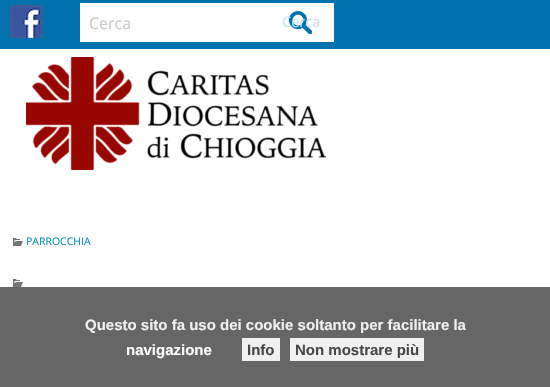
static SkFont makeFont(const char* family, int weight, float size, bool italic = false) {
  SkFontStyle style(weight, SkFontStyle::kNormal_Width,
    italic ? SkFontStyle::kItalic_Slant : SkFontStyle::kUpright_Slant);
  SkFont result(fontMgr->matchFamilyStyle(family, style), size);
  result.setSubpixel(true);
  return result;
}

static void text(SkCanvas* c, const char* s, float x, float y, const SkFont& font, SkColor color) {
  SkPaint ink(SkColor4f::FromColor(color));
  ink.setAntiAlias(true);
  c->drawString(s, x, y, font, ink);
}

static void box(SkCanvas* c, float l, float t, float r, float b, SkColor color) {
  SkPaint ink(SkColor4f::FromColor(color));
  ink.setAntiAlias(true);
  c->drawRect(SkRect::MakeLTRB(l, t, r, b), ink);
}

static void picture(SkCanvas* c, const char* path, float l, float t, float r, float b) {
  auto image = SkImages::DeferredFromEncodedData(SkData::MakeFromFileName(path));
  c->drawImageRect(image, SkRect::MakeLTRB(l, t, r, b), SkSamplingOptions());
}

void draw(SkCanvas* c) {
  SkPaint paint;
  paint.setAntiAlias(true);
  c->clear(0xffffffff);
  box(c, 0, 0, 550, 49, 0xff0073ae);
  picture(c, "img_01.png", 10, 5, 43, 38);
  box(c, 80, 3, 268, 42, 0xfffefefe);
  SkFont face1 = makeFont("Open Sans", 400, 16);
  text(c, "Cerca", 89, 29, face1, 0xffcacaca);
  box(c, 268, 3, 334, 42, 0xffffffff);
  picture(c, "img_02.png", 289, 11, 312, 34);
  SkFont face2 = makeFont("Open Sans", 400, 14.5f);
  text(c, "Cerca", 282, 27, face2, 0xffc9e2ee);
  picture(c, "img_03.png", 26, 57, 326, 170);
  picture(c, "img_04.png", 13, 238, 23, 246);
  SkFont face3 = makeFont("Open Sans", 400, 10.5f);
  text(c, "PARROCCHIA", 26, 245, face3, 0xff008cba);
  picture(c, "img_04.png", 13, 279, 23, 287);
  box(c, 0, 287, 550, 387, 0xe6555555);
  SkFont face4 = makeFont("Liberation Sans", 700, 15);
  text(c, "Questo sito fa uso dei cookie soltanto per facilitare la", 85, 330, face4, 0xffefefef);
  text(c, "navigazione", 126, 355, face4, 0xffffffff);
  box(c, 242, 338, 280, 361, 0xe6ffffff);
  text(c, "Info", 247, 355, face4, 0xff474747);
  box(c, 290, 338, 424, 361, 0xe6ffffff);
  text(c, "Non mostrare più", 295, 355, face4, 0xff474747);
}
